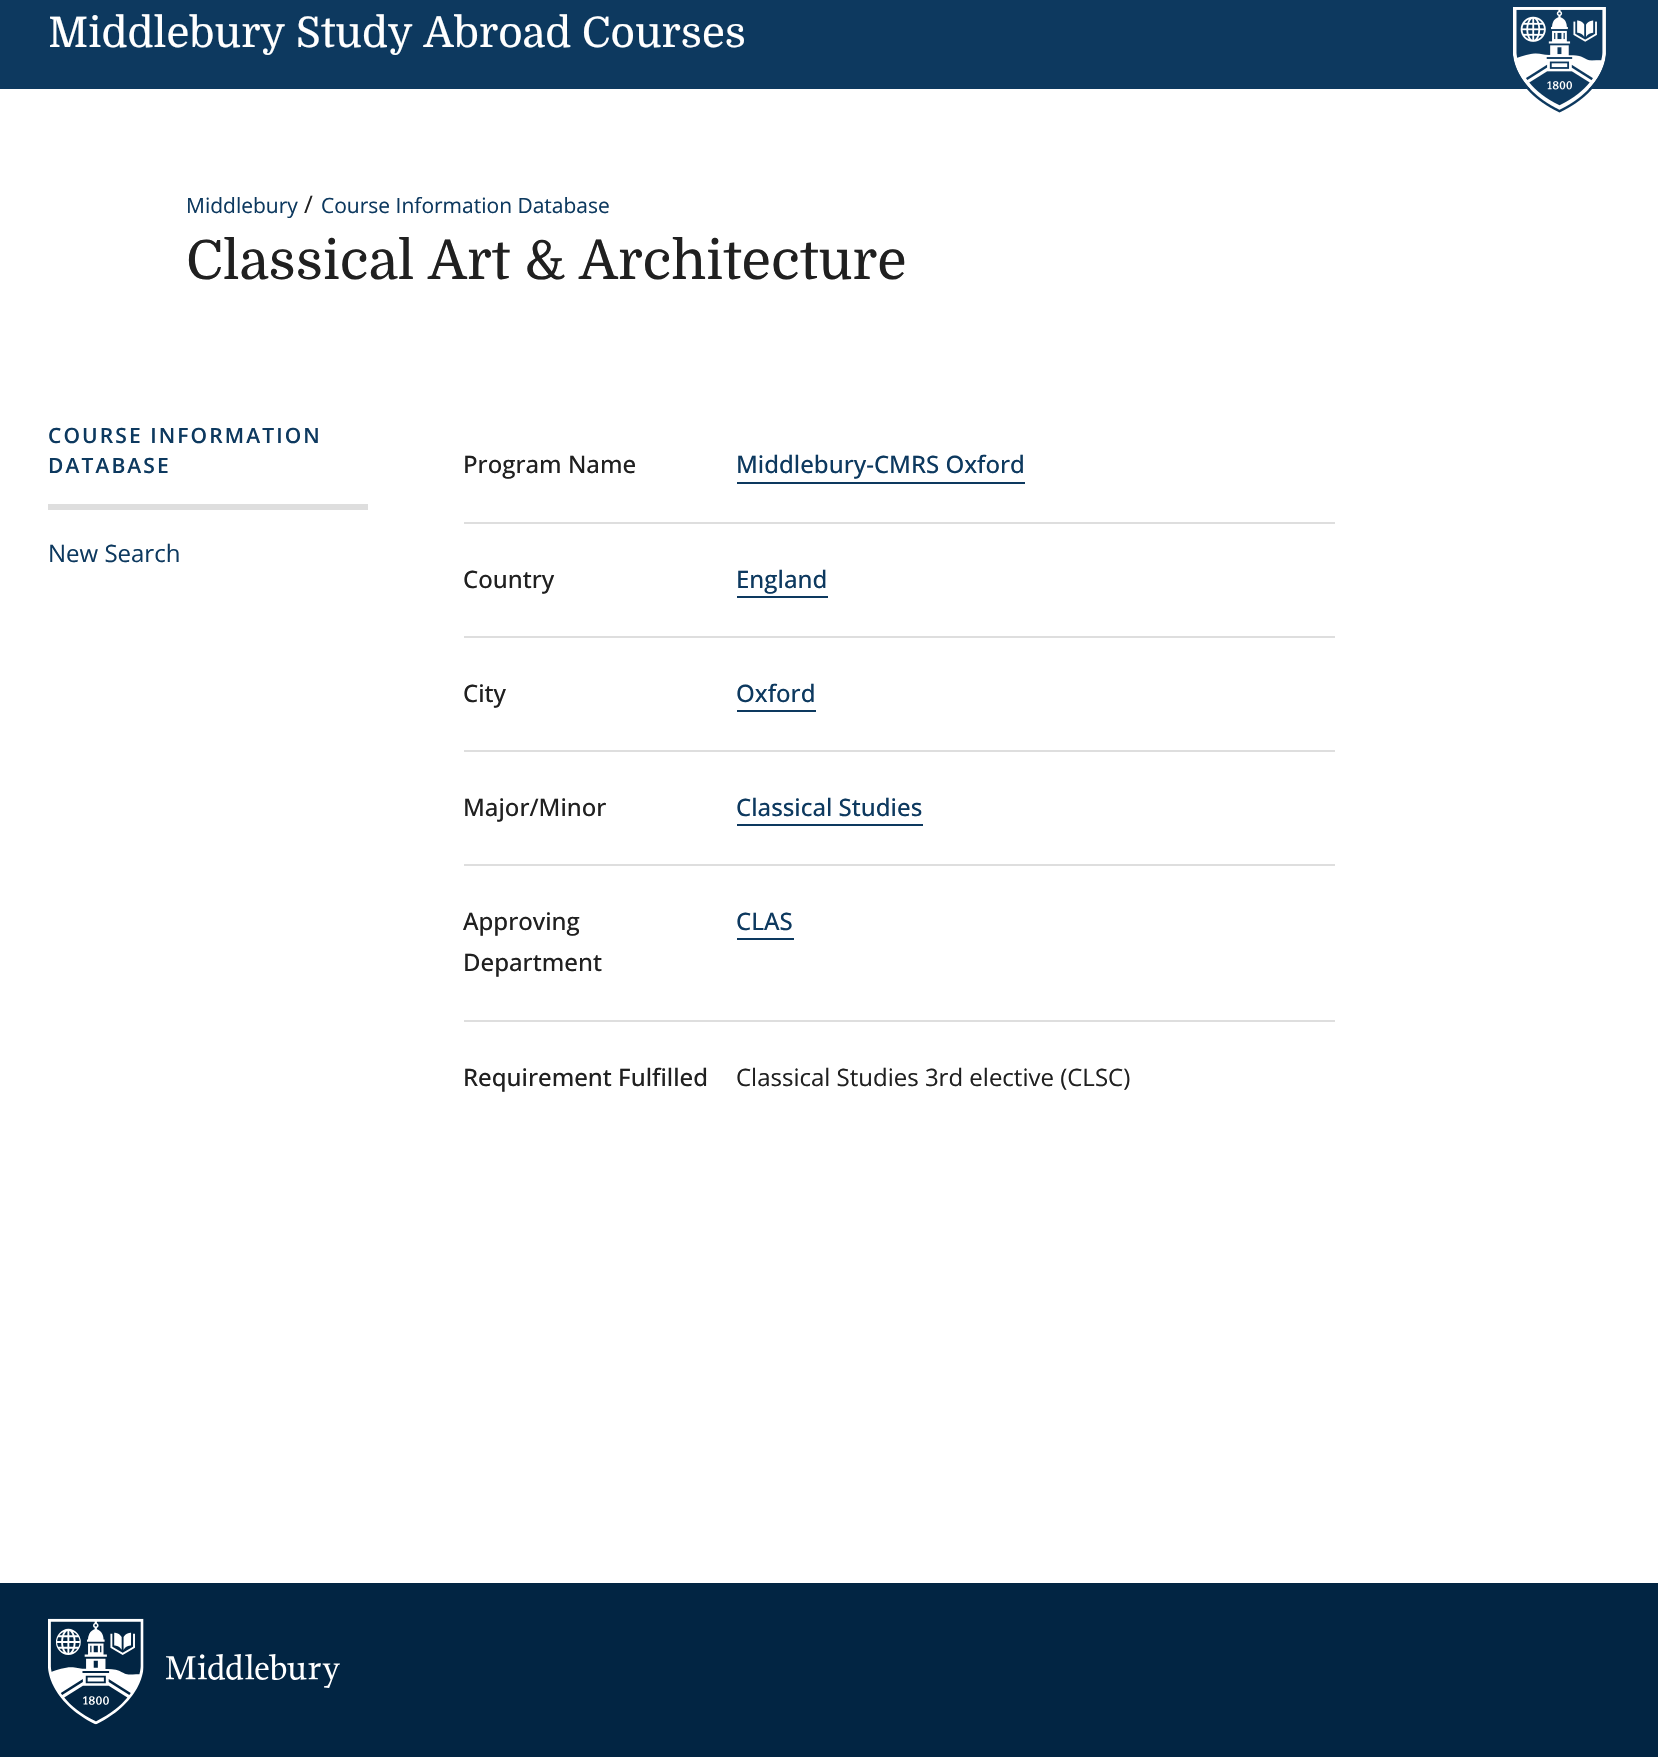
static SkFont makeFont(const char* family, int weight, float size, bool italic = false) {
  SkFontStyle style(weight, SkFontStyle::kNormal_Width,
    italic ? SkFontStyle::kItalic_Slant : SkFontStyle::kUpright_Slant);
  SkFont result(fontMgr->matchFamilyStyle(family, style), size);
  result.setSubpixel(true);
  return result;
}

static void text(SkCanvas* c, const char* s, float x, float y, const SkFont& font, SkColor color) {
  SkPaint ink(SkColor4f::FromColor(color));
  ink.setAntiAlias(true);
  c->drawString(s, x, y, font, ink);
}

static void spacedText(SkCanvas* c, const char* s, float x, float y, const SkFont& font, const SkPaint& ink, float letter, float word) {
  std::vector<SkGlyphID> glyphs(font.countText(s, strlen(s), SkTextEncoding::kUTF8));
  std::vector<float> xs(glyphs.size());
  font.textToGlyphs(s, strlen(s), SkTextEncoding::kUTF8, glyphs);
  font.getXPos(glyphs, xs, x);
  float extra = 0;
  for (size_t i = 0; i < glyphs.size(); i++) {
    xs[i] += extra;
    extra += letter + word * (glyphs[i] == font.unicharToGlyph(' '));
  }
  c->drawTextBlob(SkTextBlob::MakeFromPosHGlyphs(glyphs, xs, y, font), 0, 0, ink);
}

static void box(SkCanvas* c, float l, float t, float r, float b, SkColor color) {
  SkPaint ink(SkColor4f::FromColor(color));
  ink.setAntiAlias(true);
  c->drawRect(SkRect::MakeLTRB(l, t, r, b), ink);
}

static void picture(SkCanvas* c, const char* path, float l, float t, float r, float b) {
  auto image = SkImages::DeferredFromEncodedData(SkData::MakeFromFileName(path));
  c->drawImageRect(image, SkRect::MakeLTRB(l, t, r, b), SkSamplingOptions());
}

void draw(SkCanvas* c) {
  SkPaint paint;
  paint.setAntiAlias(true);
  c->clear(0xffffffff);
  box(c, 0, 0, 1658, 89, 0xff0d395f);
  SkFont face1 = makeFont("Domine", 400, 42);
  text(c, "Middlebury Study Abroad Courses", 48, 47, face1, 0xffffffff);
  picture(c, "img_01.png", 1513, 7, 1606, 113);
  SkFont face2 = makeFont("Open Sans", 400, 21);
  text(c, "Middlebury", 186, 213, face2, 0xff0d395f);
  SkFont face3 = makeFont("Open Sans", 400, 24);
  text(c, "/", 304, 213, face3, 0xff202020);
  text(c, "Course Information Database", 321, 213, face2, 0xff0d395f);
  SkFont face4 = makeFont("Domine", 400, 54);
  text(c, "Classical Art & Architecture", 186, 279, face4, 0xff202020);
  box(c, 48, 504, 368, 510, 0xffdedede);
  SkFont face5 = makeFont("Open Sans", 600, 21);
  paint.setColor(0xff0d395f);
  spacedText(c, "COURSE INFORMATION", 48, 443, face5, paint, 2.1f, 0);
  spacedText(c, "DATABASE", 48, 473, face5, paint, 2.1f, 0);
  text(c, "New Search", 48, 562, face3, 0xff0d395f);
  box(c, 464, 522, 1335, 524, 0xffdedede);
  SkFont face6 = makeFont("Open Sans", 500, 24);
  text(c, "Program Name", 463, 473, face6, 0xff202020);
  text(c, "Middlebury-CMRS Oxford", 736, 473, face6, 0xff0d395f);
  box(c, 737, 482, 1025, 484, 0xff0d395f);
  box(c, 464, 636, 1335, 638, 0xffdedede);
  text(c, "Country", 463, 588, face6, 0xff202020);
  text(c, "England", 736, 588, face6, 0xff0d395f);
  box(c, 737, 596, 828, 598, 0xff0d395f);
  box(c, 464, 750, 1335, 752, 0xffdedede);
  text(c, "City", 463, 702, face6, 0xff202020);
  text(c, "Oxford", 736, 702, face6, 0xff0d395f);
  box(c, 737, 710, 816, 712, 0xff0d395f);
  box(c, 464, 864, 1335, 866, 0xffdedede);
  text(c, "Major/Minor", 463, 816, face6, 0xff202020);
  text(c, "Classical Studies", 736, 816, face6, 0xff0d395f);
  box(c, 737, 824, 923, 826, 0xff0d395f);
  box(c, 464, 1020, 1335, 1022, 0xffdedede);
  text(c, "Approving", 463, 930, face6, 0xff202020);
  text(c, "Department", 463, 971, face6, 0xff202020);
  text(c, "CLAS", 736, 930, face6, 0xff0d395f);
  box(c, 737, 938, 794, 940, 0xff0d395f);
  text(c, "Requirement Fulfilled", 463, 1086, face6, 0xff202020);
  text(c, "Classical Studies 3rd elective (CLSC)", 736, 1086, face3, 0xff202020);
  box(c, 0, 1583, 1658, 1757, 0xff022543);
  picture(c, "img_02.png", 48, 1618, 340, 1725);
}
